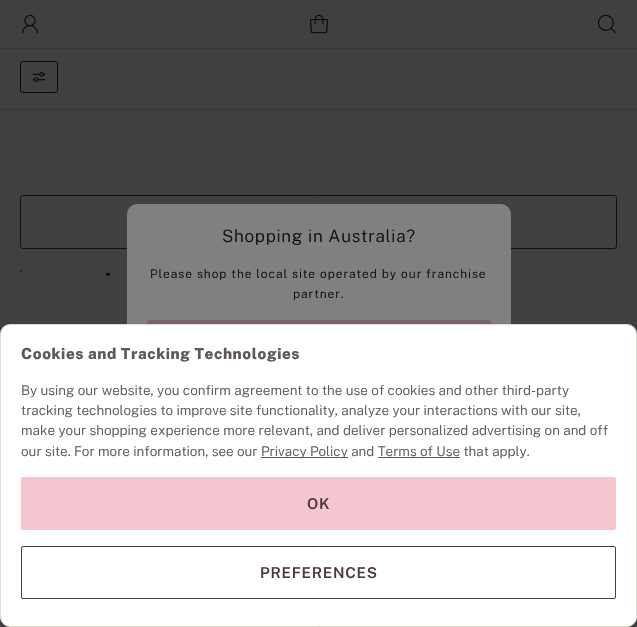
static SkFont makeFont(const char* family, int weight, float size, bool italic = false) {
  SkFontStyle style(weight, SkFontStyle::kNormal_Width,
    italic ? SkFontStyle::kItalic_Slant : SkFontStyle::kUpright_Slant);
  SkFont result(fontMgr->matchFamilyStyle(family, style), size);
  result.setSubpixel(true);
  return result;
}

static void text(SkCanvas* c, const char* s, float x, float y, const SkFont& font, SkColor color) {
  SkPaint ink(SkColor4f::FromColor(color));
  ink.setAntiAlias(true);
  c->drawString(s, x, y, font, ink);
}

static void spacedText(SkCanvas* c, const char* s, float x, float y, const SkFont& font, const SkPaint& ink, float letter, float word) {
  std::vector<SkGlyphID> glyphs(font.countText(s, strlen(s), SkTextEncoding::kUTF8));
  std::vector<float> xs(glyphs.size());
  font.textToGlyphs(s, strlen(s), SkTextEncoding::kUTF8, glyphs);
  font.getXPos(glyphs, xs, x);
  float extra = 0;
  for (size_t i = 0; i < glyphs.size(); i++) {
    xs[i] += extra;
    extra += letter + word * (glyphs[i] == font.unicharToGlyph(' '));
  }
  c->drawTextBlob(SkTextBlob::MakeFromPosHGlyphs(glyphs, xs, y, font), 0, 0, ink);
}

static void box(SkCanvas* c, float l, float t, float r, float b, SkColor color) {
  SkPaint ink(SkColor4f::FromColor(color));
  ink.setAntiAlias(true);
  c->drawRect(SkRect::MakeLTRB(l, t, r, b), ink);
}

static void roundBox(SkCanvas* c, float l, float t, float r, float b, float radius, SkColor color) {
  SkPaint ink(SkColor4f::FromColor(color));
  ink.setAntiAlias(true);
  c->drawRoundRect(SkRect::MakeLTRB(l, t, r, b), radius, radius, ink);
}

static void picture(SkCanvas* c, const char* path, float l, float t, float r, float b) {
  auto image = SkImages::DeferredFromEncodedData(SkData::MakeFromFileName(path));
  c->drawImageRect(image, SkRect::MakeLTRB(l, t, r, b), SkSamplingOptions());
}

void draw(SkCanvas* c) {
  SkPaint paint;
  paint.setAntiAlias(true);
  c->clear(0xff404040);
  box(c, 0, 48, 637, 49, 0xff383736);
  picture(c, "img_01.png", 22, 14, 38, 34);
  picture(c, "img_02.png", 310, 14, 328, 34);
  picture(c, "img_03.png", 597, 14, 616, 33);
  box(c, 0, 109, 637, 110, 0xff383736);
  paint.setStyle(SkPaint::kStroke_Style);
  paint.setStrokeWidth(1);
  paint.setColor(0xff090808);
  c->drawRoundRect(SkRect::MakeLTRB(20.5f, 61.5f, 57.5f, 92.5f), 2.5f, 2.5f, paint);
  picture(c, "img_04.png", 32, 72, 46, 83);
  paint.setColor(0xff140e11);
  c->drawRoundRect(SkRect::MakeLTRB(20.5f, 195.5f, 616.5f, 248.5f), 2.5f, 2.5f, paint);
  picture(c, "img_05.png", 20, 270, 22, 272);
  picture(c, "img_06.png", 106, 272, 110, 276);
  roundBox(c, 127, 204, 511, 424, 10, 0xff808080);
  SkFont face1 = makeFont("Public Sans", 300, 17.1f);
  paint.setStyle(SkPaint::kFill_Style);
  paint.setColor(0xff110f0f);
  spacedText(c, "Shopping in Australia?", 222, 242, face1, paint, 0.7f, 0);
  SkFont face2 = makeFont("Public Sans", 300, 12);
  spacedText(c, "Please shop the local site operated by our franchise", 150, 278, face2, paint, 0.95f, 0);
  spacedText(c, "partner.", 293, 298, face2, paint, 0.95f, 0);
  paint.setColor(0xff7a6368);
  c->drawRoundRect(SkRect::MakeLTRB(147.5f, 320.5f, 490.5f, 367.5f), 2.5f, 2.5f, paint);
  paint.setStyle(SkPaint::kStroke_Style);
  c->drawRoundRect(SkRect::MakeLTRB(147.5f, 320.5f, 490.5f, 367.5f), 2.5f, 2.5f, paint);
  paint.setStyle(SkPaint::kFill_Style);
  paint.setColor(0xffffffff);
  c->drawRoundRect(SkRect::MakeLTRB(0.5f, 324.5f, 636.5f, 626.5f), 9.5f, 9.5f, paint);
  paint.setStyle(SkPaint::kStroke_Style);
  paint.setColor(0xffe0dad5);
  c->drawRoundRect(SkRect::MakeLTRB(0.5f, 324.5f, 636.5f, 626.5f), 9.5f, 9.5f, paint);
  SkFont face3 = makeFont("Public Sans", 800, 15.2f);
  paint.setStyle(SkPaint::kFill_Style);
  paint.setColor(0xff605858);
  spacedText(c, "Cookies and Tracking Technologies", 21, 359, face3, paint, 0.6f, 0);
  SkFont face4 = makeFont("Public Sans", 300, 13.5f);
  text(c, "By using our website, you confirm agreement to the use of cookies and other third-party", 21, 395, face4, 0xff605858);
  text(c, "tracking technologies to improve site functionality, analyze your interactions with our site,", 21, 415, face4, 0xff605858);
  text(c, "make your shopping experience more relevant, and deliver personalized advertising on and off", 21, 435, face4, 0xff605858);
  text(c, "our site. For more information, see our", 21, 456, face4, 0xff605858);
  box(c, 261, 457, 348, 458, 0xff605858);
  text(c, "Privacy Policy and Terms of Use that apply.", 261, 456, face4, 0xff605858);
  box(c, 378, 457, 460, 458, 0xff605858);
  paint.setColor(0xfff4c6cf);
  c->drawRoundRect(SkRect::MakeLTRB(21.5f, 477.5f, 615.5f, 529.5f), 1.5f, 1.5f, paint);
  paint.setStyle(SkPaint::kStroke_Style);
  c->drawRoundRect(SkRect::MakeLTRB(21.5f, 477.5f, 615.5f, 529.5f), 1.5f, 1.5f, paint);
  SkFont face5 = makeFont("Public Sans", 600, 15);
  paint.setStyle(SkPaint::kFill_Style);
  paint.setColor(0xff4e3844);
  spacedText(c, "OK", 307, 509, face5, paint, 0.75f, 0);
  paint.setStyle(SkPaint::kStroke_Style);
  c->drawRoundRect(SkRect::MakeLTRB(21.5f, 546.5f, 615.5f, 598.5f), 1.5f, 1.5f, paint);
  paint.setStyle(SkPaint::kFill_Style);
  spacedText(c, "PREFERENCES", 260, 578, face5, paint, 0.75f, 0);
}
